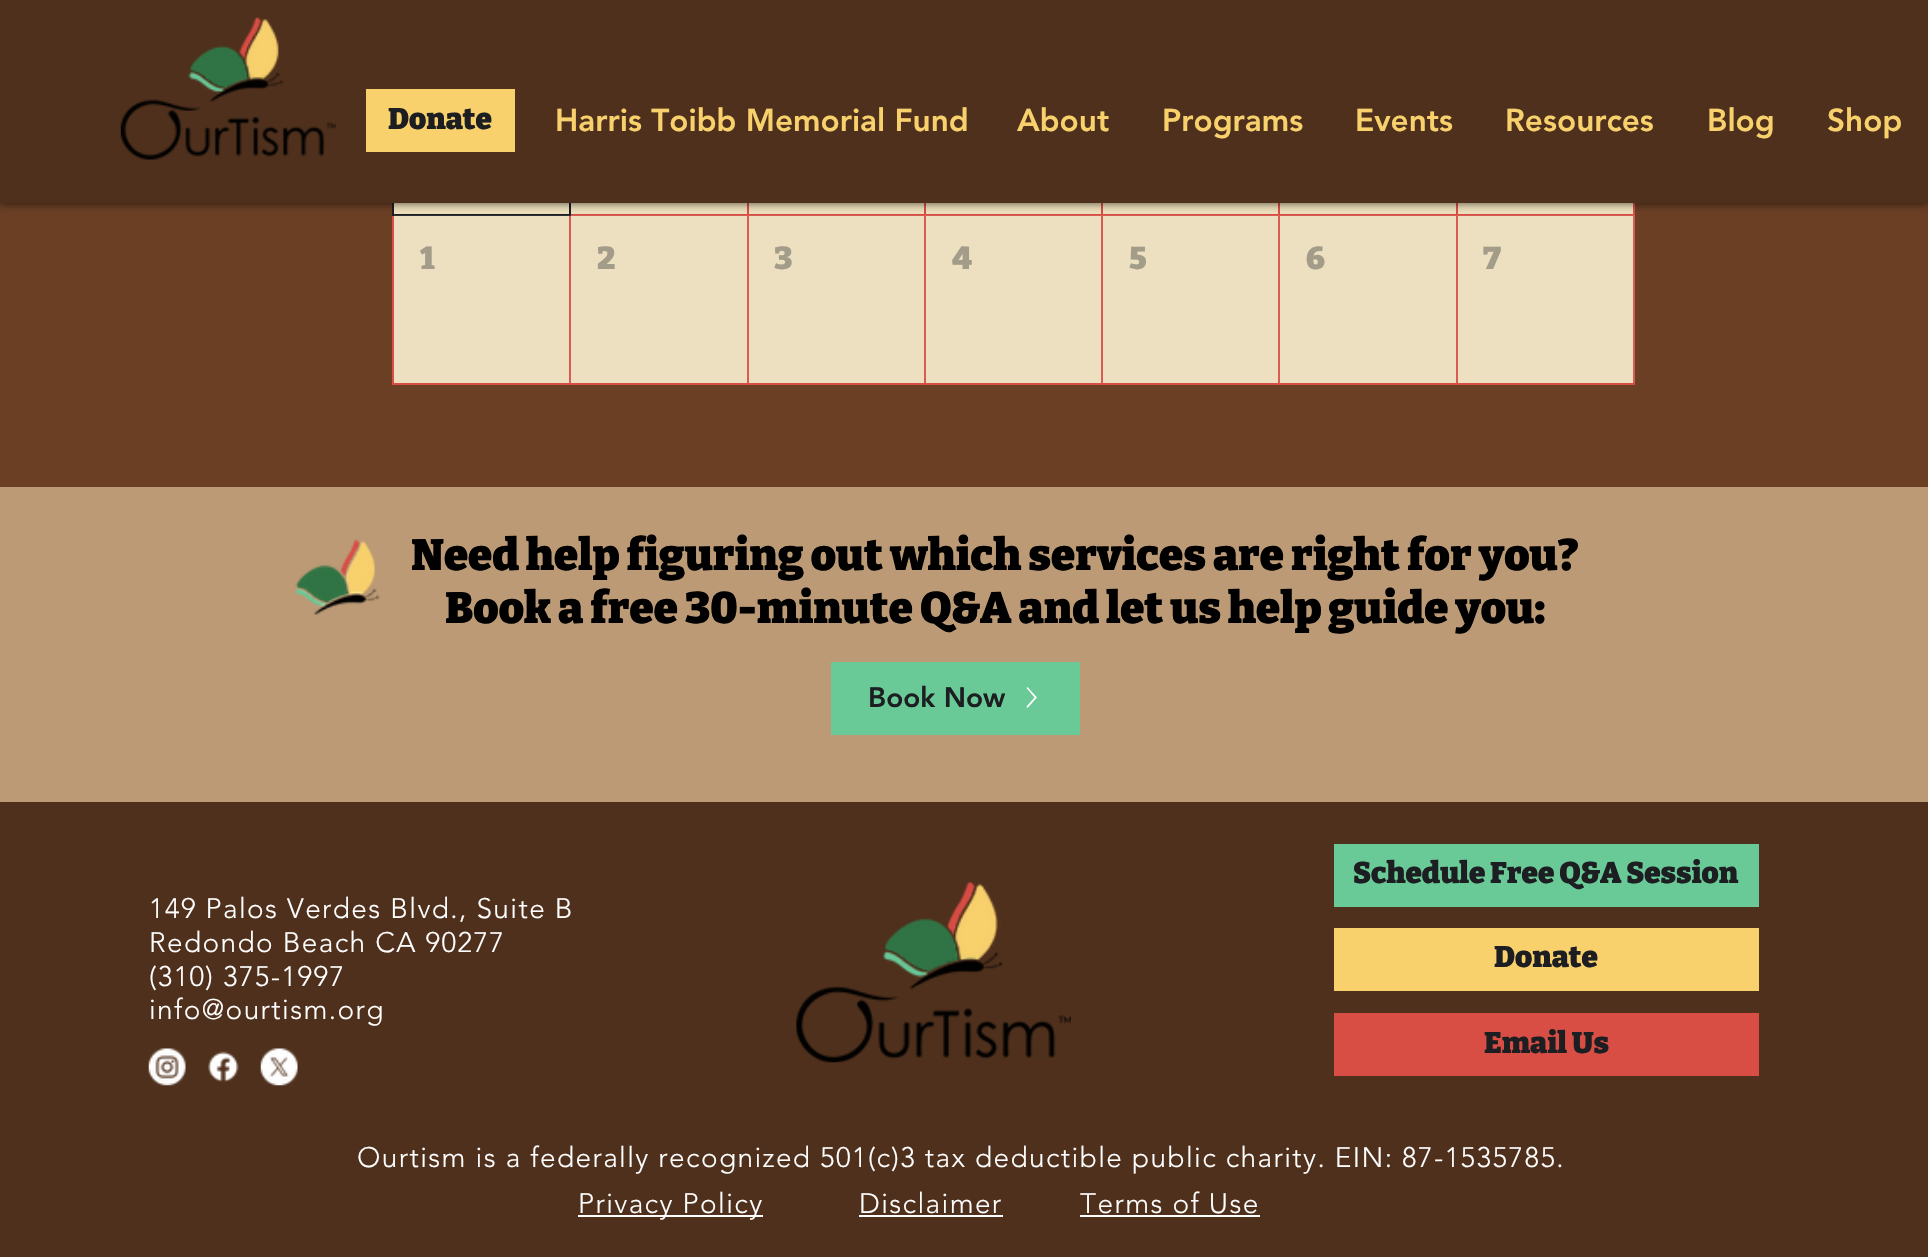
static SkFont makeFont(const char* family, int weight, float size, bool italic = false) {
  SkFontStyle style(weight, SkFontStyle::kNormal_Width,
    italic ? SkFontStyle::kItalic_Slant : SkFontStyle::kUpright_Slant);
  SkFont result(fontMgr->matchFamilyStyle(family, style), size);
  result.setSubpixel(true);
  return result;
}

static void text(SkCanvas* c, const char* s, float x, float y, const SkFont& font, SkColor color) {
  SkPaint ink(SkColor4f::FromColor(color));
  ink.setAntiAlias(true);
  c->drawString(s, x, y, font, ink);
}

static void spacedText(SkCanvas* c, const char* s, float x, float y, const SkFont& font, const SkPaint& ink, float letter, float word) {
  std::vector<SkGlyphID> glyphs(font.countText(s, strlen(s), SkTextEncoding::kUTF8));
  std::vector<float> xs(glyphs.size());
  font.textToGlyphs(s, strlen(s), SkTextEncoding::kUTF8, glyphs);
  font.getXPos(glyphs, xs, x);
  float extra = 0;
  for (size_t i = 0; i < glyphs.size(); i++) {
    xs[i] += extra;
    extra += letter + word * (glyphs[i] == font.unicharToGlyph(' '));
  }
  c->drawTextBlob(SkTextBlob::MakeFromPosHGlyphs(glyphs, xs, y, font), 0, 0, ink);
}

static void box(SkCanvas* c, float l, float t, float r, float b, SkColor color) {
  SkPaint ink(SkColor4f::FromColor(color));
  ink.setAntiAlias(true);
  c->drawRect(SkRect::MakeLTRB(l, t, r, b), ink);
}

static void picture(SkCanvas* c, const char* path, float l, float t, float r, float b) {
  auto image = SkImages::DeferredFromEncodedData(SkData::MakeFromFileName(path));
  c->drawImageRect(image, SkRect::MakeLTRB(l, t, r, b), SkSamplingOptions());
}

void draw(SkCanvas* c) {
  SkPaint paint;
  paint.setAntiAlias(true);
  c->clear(0xff6a3f24);
  box(c, 394, 203, 1633, 214, 0xffeee1bd);
  box(c, 1458, 216, 1633, 383, 0xffece0c1);
  box(c, 1280, 216, 1456, 383, 0xffece0c1);
  box(c, 1103, 216, 1278, 383, 0xffece0c1);
  box(c, 926, 216, 1101, 383, 0xffece0c1);
  box(c, 749, 216, 924, 383, 0xffece0c1);
  box(c, 571, 216, 747, 383, 0xffece0c1);
  box(c, 394, 216, 569, 383, 0xffece0c1);
  box(c, 571, 214, 1635, 215, 0xffd84e44);
  box(c, 1633, 203, 1635, 215, 0xffd84e44);
  box(c, 569, 203, 571, 215, 0xff1d1e21);
  box(c, 392, 383, 1635, 385, 0xffd84e44);
  box(c, 392, 214, 394, 385, 0xffd84e44);
  box(c, 569, 215, 571, 383, 0xffd85c54);
  box(c, 392, 214, 571, 216, 0xff1d1e21);
  box(c, 394, 215, 571, 216, 0xff2f3134);
  box(c, 392, 203, 394, 215, 0xff1d1e21);
  box(c, 747, 203, 749, 215, 0xffd84e44);
  box(c, 924, 203, 926, 215, 0xffd84e44);
  box(c, 1101, 203, 1103, 215, 0xffd84e44);
  box(c, 1278, 203, 1280, 215, 0xffd84e44);
  box(c, 1456, 203, 1458, 215, 0xffd84e44);
  box(c, 571, 215, 1635, 216, 0xffd85c54);
  box(c, 1633, 215, 1635, 383, 0xffd85c54);
  box(c, 747, 215, 749, 383, 0xffd85c54);
  box(c, 924, 215, 926, 383, 0xffd85c54);
  box(c, 1101, 215, 1103, 383, 0xffd85c54);
  box(c, 1278, 215, 1280, 383, 0xffd85c54);
  box(c, 1456, 215, 1458, 383, 0xffd85c54);
  paint.setColor(0xb3000000);
  paint.setMaskFilter(SkMaskFilter::MakeBlur(kNormal_SkBlurStyle, 4.5f));
  c->drawRect(SkRect::MakeLTRB(0, 0, 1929, 203), paint);
  paint.setMaskFilter(nullptr);
  box(c, 0, 0, 1928, 203, 0xff4f301c);
  picture(c, "img_01.png", 120, 17, 336, 160);
  box(c, 366, 89, 515, 152, 0xfff8d16d);
  SkFont face1 = makeFont("Bitter", 900, 29.75f);
  text(c, "Donate", 388, 129, face1, 0xff1d1e21);
  SkFont face2 = makeFont("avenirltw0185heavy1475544", 900, 31.5f);
  text(c, "Harris Toibb Memorial Fund", 555, 131, face2, 0xfff8d16d);
  text(c, "About", 1017, 131, face2, 0xfff8d16d);
  text(c, "Programs", 1162, 131, face2, 0xfff8d16d);
  text(c, "Events", 1355, 131, face2, 0xfff8d16d);
  text(c, "Resources", 1505, 131, face2, 0xfff8d16d);
  text(c, "Blog", 1707, 131, face2, 0xfff8d16d);
  text(c, "Shop", 1827, 131, face2, 0xfff8d16d);
  SkFont face3 = makeFont("Bitter", 900, 31.5f);
  text(c, "1", 420, 269, face3, 0xffa39c89);
  text(c, "2", 597, 269, face3, 0xffa39c89);
  text(c, "3", 774, 269, face3, 0xffa39c89);
  text(c, "4", 952, 269, face3, 0xffa39c89);
  text(c, "5", 1129, 269, face3, 0xffa39c89);
  text(c, "6", 1306, 269, face3, 0xffa39c89);
  text(c, "7", 1483, 269, face3, 0xffa39c89);
  box(c, 0, 487, 1928, 802, 0xffbc9a76);
  picture(c, "img_02.png", 295, 539, 380, 615);
  SkFont face4 = makeFont("Bitter", 900, 43.75f);
  text(c, "Need help figuring out which services are right for you?", 411, 570, face4, 0xff000000);
  text(c, "Book a free 30-minute Q&A and let us help guide you:", 445, 623, face4, 0xff000000);
  box(c, 831, 662, 1080, 735, 0xff69ca98);
  SkFont face5 = makeFont("avenirltw0185heavy1475544", 900, 28);
  text(c, "Book Now", 868, 707, face5, 0xff1d1e21);
  paint.setColor(0xffffffff);
  c->drawPath(SkPathBuilder(SkPathFillType::kEvenOdd).moveTo(1037, 697.5f).lineTo(1027.5f, 708).lineTo(1026.5f, 706.5f).lineTo(1034.5f, 697.5f).lineTo(1026.5f, 688).lineTo(1027.5f, 687).close().detach(), paint);
  box(c, 0, 802, 1928, 1257, 0xff4f301c);
  box(c, 1334, 844, 1759, 907, 0xff69ca98);
  text(c, "Schedule Free Q&A Session", 1353, 883, face1, 0xff1d1e21);
  SkFont face6 = makeFont("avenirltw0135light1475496", 300, 28);
  spacedText(c, "149 Palos Verdes Blvd., Suite B", 149, 918, face6, paint, 1.4f, 0);
  spacedText(c, "Redondo Beach CA 90277", 149, 952, face6, paint, 1.4f, 0);
  spacedText(c, "(310) 375-1997", 149, 986, face6, paint, 1.4f, 0);
  spacedText(c, "info@ourtism.org", 149, 1019, face6, paint, 1.4f, 0);
  picture(c, "img_03.png", 796, 882, 1071, 1063);
  box(c, 1334, 928, 1759, 991, 0xfff8d16d);
  text(c, "Donate", 1494, 967, face1, 0xff1d1e21);
  box(c, 1334, 1013, 1759, 1076, 0xffd84e44);
  text(c, "Email Us", 1484, 1053, face1, 0xff1d1e21);
  picture(c, "img_04.png", 148, 1048, 186, 1086);
  picture(c, "img_05.png", 208, 1051, 239, 1082);
  picture(c, "img_06.png", 260, 1048, 298, 1086);
  spacedText(c, "Ourtism is a federally recognized 501(c)3 tax deductible public charity. EIN: 87-1535785.", 357, 1167, face6, paint, 1.4f, 0);
  box(c, 578, 1215, 763, 1217, 0xffffffff);
  spacedText(c, "Privacy Policy", 578, 1213, face6, paint, 1.4f, 0);
  spacedText(c, "Disclaimer", 859, 1213, face6, paint, 1.4f, 0);
  box(c, 859, 1215, 1003, 1217, 0xffffffff);
  spacedText(c, "Terms of Use", 1080, 1213, face6, paint, 1.4f, 0);
  box(c, 1080, 1215, 1260, 1217, 0xffffffff);
}
